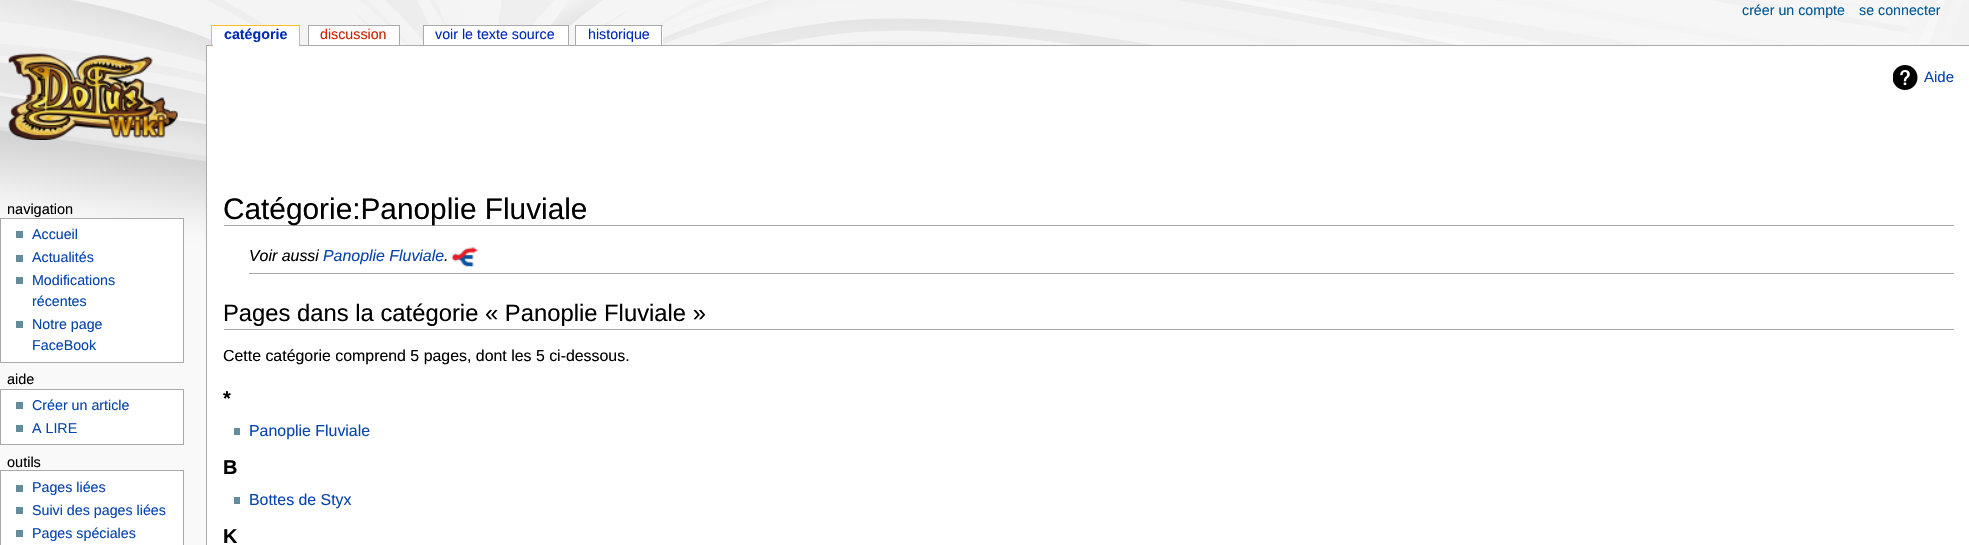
static SkFont makeFont(const char* family, int weight, float size, bool italic = false) {
  SkFontStyle style(weight, SkFontStyle::kNormal_Width,
    italic ? SkFontStyle::kItalic_Slant : SkFontStyle::kUpright_Slant);
  SkFont result(fontMgr->matchFamilyStyle(family, style), size);
  result.setSubpixel(true);
  return result;
}

static void text(SkCanvas* c, const char* s, float x, float y, const SkFont& font, SkColor color) {
  SkPaint ink(SkColor4f::FromColor(color));
  ink.setAntiAlias(true);
  c->drawString(s, x, y, font, ink);
}

static void box(SkCanvas* c, float l, float t, float r, float b, SkColor color) {
  SkPaint ink(SkColor4f::FromColor(color));
  ink.setAntiAlias(true);
  c->drawRect(SkRect::MakeLTRB(l, t, r, b), ink);
}

static void picture(SkCanvas* c, const char* path, float l, float t, float r, float b) {
  auto image = SkImages::DeferredFromEncodedData(SkData::MakeFromFileName(path));
  c->drawImageRect(image, SkRect::MakeLTRB(l, t, r, b), SkSamplingOptions());
}

void draw(SkCanvas* c) {
  SkPaint paint;
  paint.setAntiAlias(true);
  c->clear(0xfff9f9f9);
  picture(c, "img_01.png", 0, 0, 1969, 263);
  SkFont face1 = makeFont("Liberation Sans", 400, 14.25f);
  text(c, "créer un compte", 1742, 15, face1, 0xff005896);
  text(c, "se connecter", 1859, 15, face1, 0xff005896);
  box(c, 206, 45, 1969, 46, 0xffaaaaaa);
  box(c, 213, 26, 299, 46, 0xffffffff);
  SkFont face2 = makeFont("Liberation Sans", 700, 14.25f);
  text(c, "catégorie", 224, 39, face2, 0xff002bb8);
  box(c, 212, 26, 213, 45, 0xffffffff);
  box(c, 211, 25, 300, 26, 0xfffabd23);
  box(c, 299, 25, 300, 45, 0xfffabd23);
  box(c, 211, 25, 212, 45, 0xfffabd23);
  box(c, 309, 26, 399, 45, 0xffffffff);
  text(c, "discussion", 320, 39, face1, 0xffcc2200);
  box(c, 308, 25, 400, 26, 0xffaaaaaa);
  box(c, 399, 25, 400, 45, 0xffaaaaaa);
  box(c, 308, 25, 309, 45, 0xffaaaaaa);
  box(c, 424, 26, 568, 45, 0xffffffff);
  text(c, "voir le texte source", 435, 39, face1, 0xff002bb8);
  box(c, 423, 25, 569, 26, 0xffaaaaaa);
  box(c, 568, 25, 569, 45, 0xffaaaaaa);
  box(c, 423, 25, 424, 45, 0xffaaaaaa);
  box(c, 576, 26, 663, 45, 0xffffffff);
  text(c, "historique", 588, 39, face1, 0xff002bb8);
  box(c, 575, 25, 663, 26, 0xffaaaaaa);
  box(c, 661, 25, 662, 45, 0xffaaaaaa);
  box(c, 575, 25, 576, 45, 0xffaaaaaa);
  picture(c, "img_02.png", 8, 53, 178, 140);
  SkFont face3 = makeFont("Liberation Sans", 400, 14.5f);
  text(c, "navigation", 7, 214, face3, 0xff000000);
  paint.setColor(0xffffffff);
  c->drawRect(SkRect::MakeLTRB(0.5f, 218.5f, 183.5f, 362.5f), paint);
  paint.setStyle(SkPaint::kStroke_Style);
  paint.setStrokeWidth(1);
  paint.setColor(0xffaaaaaa);
  c->drawRect(SkRect::MakeLTRB(0.5f, 218.5f, 183.5f, 362.5f), paint);
  box(c, 16, 231, 23, 238, 0xff638c9c);
  text(c, "Accueil", 32, 239, face1, 0xff0645ad);
  box(c, 16, 255, 23, 262, 0xff638c9c);
  text(c, "Actualités", 32, 262, face1, 0xff0645ad);
  box(c, 16, 277, 23, 284, 0xff638c9c);
  text(c, "Modifications", 32, 285, face1, 0xff0645ad);
  text(c, "récentes", 32, 306, face1, 0xff0645ad);
  box(c, 16, 321, 23, 328, 0xff638c9c);
  text(c, "Notre page", 32, 329, face1, 0xff0645ad);
  text(c, "FaceBook", 32, 350, face1, 0xff0645ad);
  text(c, "aide", 7, 384, face3, 0xff000000);
  paint.setStyle(SkPaint::kFill_Style);
  paint.setColor(0xffffffff);
  c->drawRect(SkRect::MakeLTRB(0.5f, 389.5f, 183.5f, 444.5f), paint);
  paint.setStyle(SkPaint::kStroke_Style);
  paint.setColor(0xffaaaaaa);
  c->drawRect(SkRect::MakeLTRB(0.5f, 389.5f, 183.5f, 444.5f), paint);
  box(c, 16, 402, 23, 409, 0xff638c9c);
  text(c, "Créer un article", 32, 410, face1, 0xff0645ad);
  box(c, 16, 425, 23, 432, 0xff638c9c);
  text(c, "A LIRE", 32, 433, face1, 0xff0645ad);
  text(c, "outils", 7, 467, face3, 0xff000000);
  paint.setStyle(SkPaint::kFill_Style);
  paint.setColor(0xffffffff);
  c->drawRect(SkRect::MakeLTRB(0.5f, 470.5f, 183.5f, 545.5f), paint);
  paint.setStyle(SkPaint::kStroke_Style);
  paint.setColor(0xffaaaaaa);
  c->drawRect(SkRect::MakeLTRB(0.5f, 470.5f, 183.5f, 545.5f), paint);
  box(c, 16, 485, 23, 492, 0xff638c9c);
  text(c, "Pages liées", 32, 492, face1, 0xff0645ad);
  box(c, 16, 507, 23, 514, 0xff638c9c);
  text(c, "Suivi des pages liées", 32, 515, face1, 0xff0645ad);
  box(c, 16, 530, 23, 537, 0xff638c9c);
  text(c, "Pages spéciales", 32, 538, face1, 0xff0645ad);
  box(c, 207, 46, 1969, 545, 0xffffffff);
  box(c, 206, 45, 207, 545, 0xffaaaaaa);
  picture(c, "img_03.png", 1893, 65, 1918, 90);
  SkFont face4 = makeFont("Liberation Sans", 400, 15);
  text(c, "Aide", 1924, 82, face4, 0xff0645ad);
  box(c, 224, 225, 1954, 226, 0xffa2a9b1);
  SkFont face5 = makeFont("Liberation Sans", 400, 29.8f);
  text(c, "Catégorie:Panoplie Fluviale", 223, 219, face5, 0xff000000);
  SkFont face6 = makeFont("Liberation Sans", 400, 15.9f, true);
  text(c, "Voir aussi", 249, 261, face6, 0xff000000);
  text(c, "Panoplie Fluviale", 323, 261, face6, 0xff0645ad);
  text(c, ".", 444, 261, face6, 0xff000000);
  picture(c, "img_04.png", 452, 247, 478, 267);
  box(c, 249, 273, 1954, 274, 0xffa2a9b1);
  box(c, 224, 329, 1954, 330, 0xffa2a9b1);
  SkFont face7 = makeFont("Liberation Sans", 400, 23.8f);
  text(c, "Pages dans la catégorie « Panoplie Fluviale »", 223, 321, face7, 0xff000000);
  SkFont face8 = makeFont("Liberation Sans", 400, 15.9f);
  text(c, "Cette catégorie comprend 5 pages, dont les 5 ci-dessous.", 223, 361, face8, 0xff000000);
  SkFont face9 = makeFont("Liberation Sans", 700, 20);
  text(c, "*", 223, 405, face9, 0xff000000);
  box(c, 234, 428, 240, 435, 0xff638c9c);
  text(c, "Panoplie Fluviale", 249, 436, face8, 0xff0645ad);
  text(c, "B", 223, 474, face9, 0xff000000);
  box(c, 234, 497, 240, 504, 0xff638c9c);
  text(c, "Bottes de Styx", 249, 505, face8, 0xff0645ad);
  text(c, "K", 223, 543, face9, 0xff000000);
}
